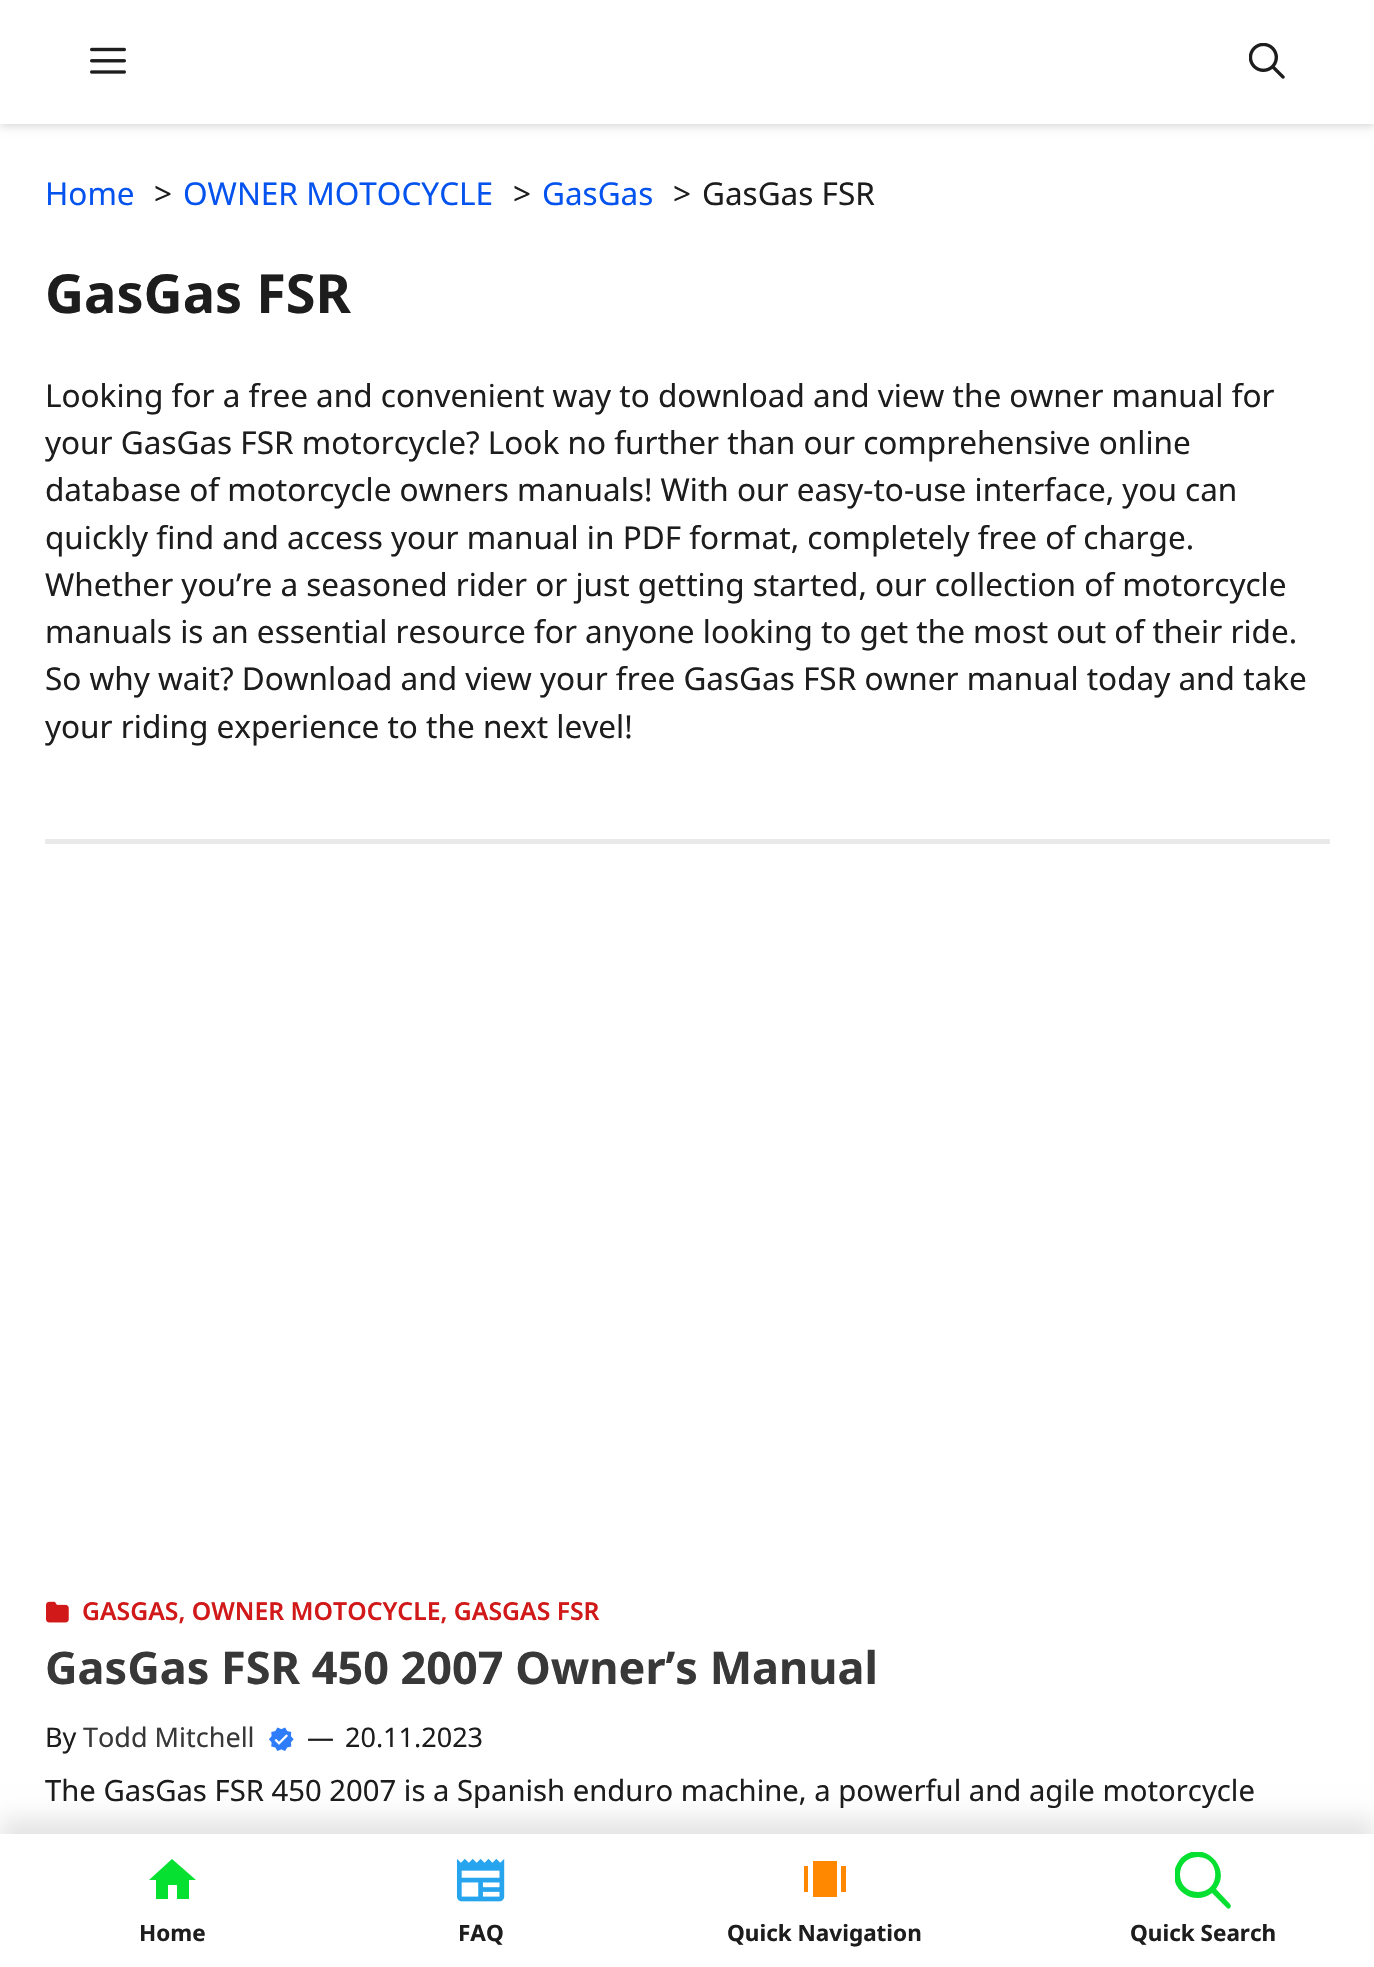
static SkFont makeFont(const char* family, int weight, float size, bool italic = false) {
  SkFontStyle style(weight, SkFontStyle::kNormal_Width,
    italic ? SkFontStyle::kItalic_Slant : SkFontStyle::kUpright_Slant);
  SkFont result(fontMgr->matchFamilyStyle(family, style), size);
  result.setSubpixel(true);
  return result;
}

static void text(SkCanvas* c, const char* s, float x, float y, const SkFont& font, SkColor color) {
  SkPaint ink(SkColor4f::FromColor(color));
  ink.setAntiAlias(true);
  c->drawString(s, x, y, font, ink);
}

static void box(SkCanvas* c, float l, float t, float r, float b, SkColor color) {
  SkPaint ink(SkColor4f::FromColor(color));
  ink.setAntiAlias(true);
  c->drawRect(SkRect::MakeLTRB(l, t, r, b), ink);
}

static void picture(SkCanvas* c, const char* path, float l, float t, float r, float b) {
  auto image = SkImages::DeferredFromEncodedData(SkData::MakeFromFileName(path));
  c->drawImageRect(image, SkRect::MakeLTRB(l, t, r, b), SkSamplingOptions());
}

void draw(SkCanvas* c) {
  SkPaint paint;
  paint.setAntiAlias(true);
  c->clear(0xffffffff);
  paint.setColor(0x29000000);
  paint.setMaskFilter(SkMaskFilter::MakeBlur(kNormal_SkBlurStyle, 4.5f));
  c->drawRect(SkRect::MakeLTRB(0, 2, 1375, 126), paint);
  paint.setMaskFilter(nullptr);
  box(c, 0, 0, 1374, 124, 0xffffffff);
  picture(c, "img_01.png", 90, 47, 126, 74);
  picture(c, "img_02.png", 1249, 43, 1285, 79);
  SkFont face1 = makeFont("Noto Sans", 400, 31.5f);
  text(c, "Home", 45, 205, face1, 0xff0553ef);
  text(c, ">", 154, 205, face1, 0xff1d1d1d);
  text(c, "OWNER MOTOCYCLE", 183, 205, face1, 0xff0553ef);
  text(c, ">", 513, 205, face1, 0xff1d1d1d);
  text(c, "GasGas", 542, 205, face1, 0xff0553ef);
  text(c, ">", 673, 205, face1, 0xff1d1d1d);
  text(c, "GasGas FSR", 702, 205, face1, 0xff1d1d1d);
  SkFont face2 = makeFont("Noto Sans", 700, 54);
  text(c, "GasGas FSR", 45, 313, face2, 0xff1d1d1d);
  text(c, "Looking for a free and convenient way to download and view the owner manual for", 45, 407, face1, 0xff1d1d1d);
  text(c, "your GasGas FSR motorcycle? Look no further than our comprehensive online", 45, 454, face1, 0xff1d1d1d);
  text(c, "database of motorcycle owners manuals! With our easy-to-use interface, you can", 45, 501, face1, 0xff1d1d1d);
  text(c, "quickly find and access your manual in PDF format, completely free of charge.", 45, 549, face1, 0xff1d1d1d);
  text(c, "Whether you’re a seasoned rider or just getting started, our collection of motorcycle", 45, 596, face1, 0xff1d1d1d);
  text(c, "manuals is an essential resource for anyone looking to get the most out of their ride.", 45, 643, face1, 0xff1d1d1d);
  text(c, "So why wait? Download and view your free GasGas FSR owner manual today and take", 45, 690, face1, 0xff1d1d1d);
  text(c, "your riding experience to the next level!", 45, 738, face1, 0xff1d1d1d);
  box(c, 45, 839, 1330, 844, 0xffe9e9e9);
  picture(c, "img_03.png", 46, 1601, 69, 1623);
  SkFont face3 = makeFont("Noto Sans", 600, 24.75f);
  text(c, "GASGAS, OWNER MOTOCYCLE, GASGAS FSR", 82, 1620, face3, 0xffd11919);
  SkFont face4 = makeFont("Noto Sans", 700, 45);
  text(c, "GasGas FSR 450 2007 Owner’s Manual", 45, 1684, face4, 0xff383838);
  SkFont face5 = makeFont("Noto Sans", 400, 27);
  text(c, "By", 45, 1747, face5, 0xff1d1d1d);
  text(c, "Todd Mitchell", 83, 1747, face5, 0xff383838);
  picture(c, "img_04.png", 269, 1727, 294, 1751);
  text(c, "—", 307, 1747, face5, 0xff1d1d1d);
  text(c, "20.11.2023", 345, 1747, face5, 0xff1d1d1d);
  SkFont face6 = makeFont("Noto Sans", 400, 29.25f);
  text(c, "The GasGas FSR 450 2007 is a Spanish enduro machine, a powerful and agile motorcycle", 45, 1801, face6, 0xff1d1d1d);
  paint.setColor(0x1a000000);
  paint.setMaskFilter(SkMaskFilter::MakeBlur(kNormal_SkBlurStyle, 11));
  c->drawRect(SkRect::MakeLTRB(0, 1818, 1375, 1953), paint);
  paint.setMaskFilter(nullptr);
  box(c, 0, 1834, 1374, 1967, 0xffffffff);
  paint.setColor(0xff05e031);
  c->drawPath(SkPathBuilder().moveTo(168, 1899).lineTo(168, 1885).lineTo(177, 1885).lineTo(177, 1899).lineTo(189, 1899).lineTo(189, 1880).lineTo(196, 1880).lineTo(172, 1859).lineTo(149, 1880).lineTo(156, 1880).lineTo(156, 1899).close().detach(), paint);
  SkFont face7 = makeFont("Noto Sans", 700, 22.5f);
  text(c, "Home", 139, 1941, face7, 0xff1d1d1d);
  picture(c, "img_05.png", 456, 1858, 505, 1902);
  text(c, "FAQ", 458, 1941, face7, 0xff1d1d1d);
  box(c, 804, 1866, 808, 1892, 0xffff8800);
  box(c, 813, 1861, 837, 1897, 0xffff8800);
  box(c, 841, 1866, 846, 1892, 0xffff8800);
  text(c, "Quick Navigation", 727, 1941, face7, 0xff1d1d1d);
  c->save();
  c->clipRect(SkRect::MakeLTRB(1175, 1852, 1231, 1910));
  c->drawPath(SkPathBuilder(SkPathFillType::kEvenOdd).moveTo(1198, 1857).cubicTo(1174, 1857, 1174, 1892, 1198, 1892).cubicTo(1221, 1892, 1221, 1857, 1198, 1857).close().moveTo(1174, 1875).cubicTo(1174, 1869, 1177, 1863, 1181, 1858).cubicTo(1202, 1838, 1233, 1867, 1216, 1889).lineTo(1230, 1904).cubicTo(1231, 1905, 1231, 1907, 1230, 1908).cubicTo(1229, 1909, 1228, 1909, 1227, 1908).lineTo(1212, 1893).cubicTo(1197, 1905, 1174, 1894, 1174, 1875).close().detach(), paint);
  c->restore();
  text(c, "Quick Search", 1130, 1941, face7, 0xff1d1d1d);
}
